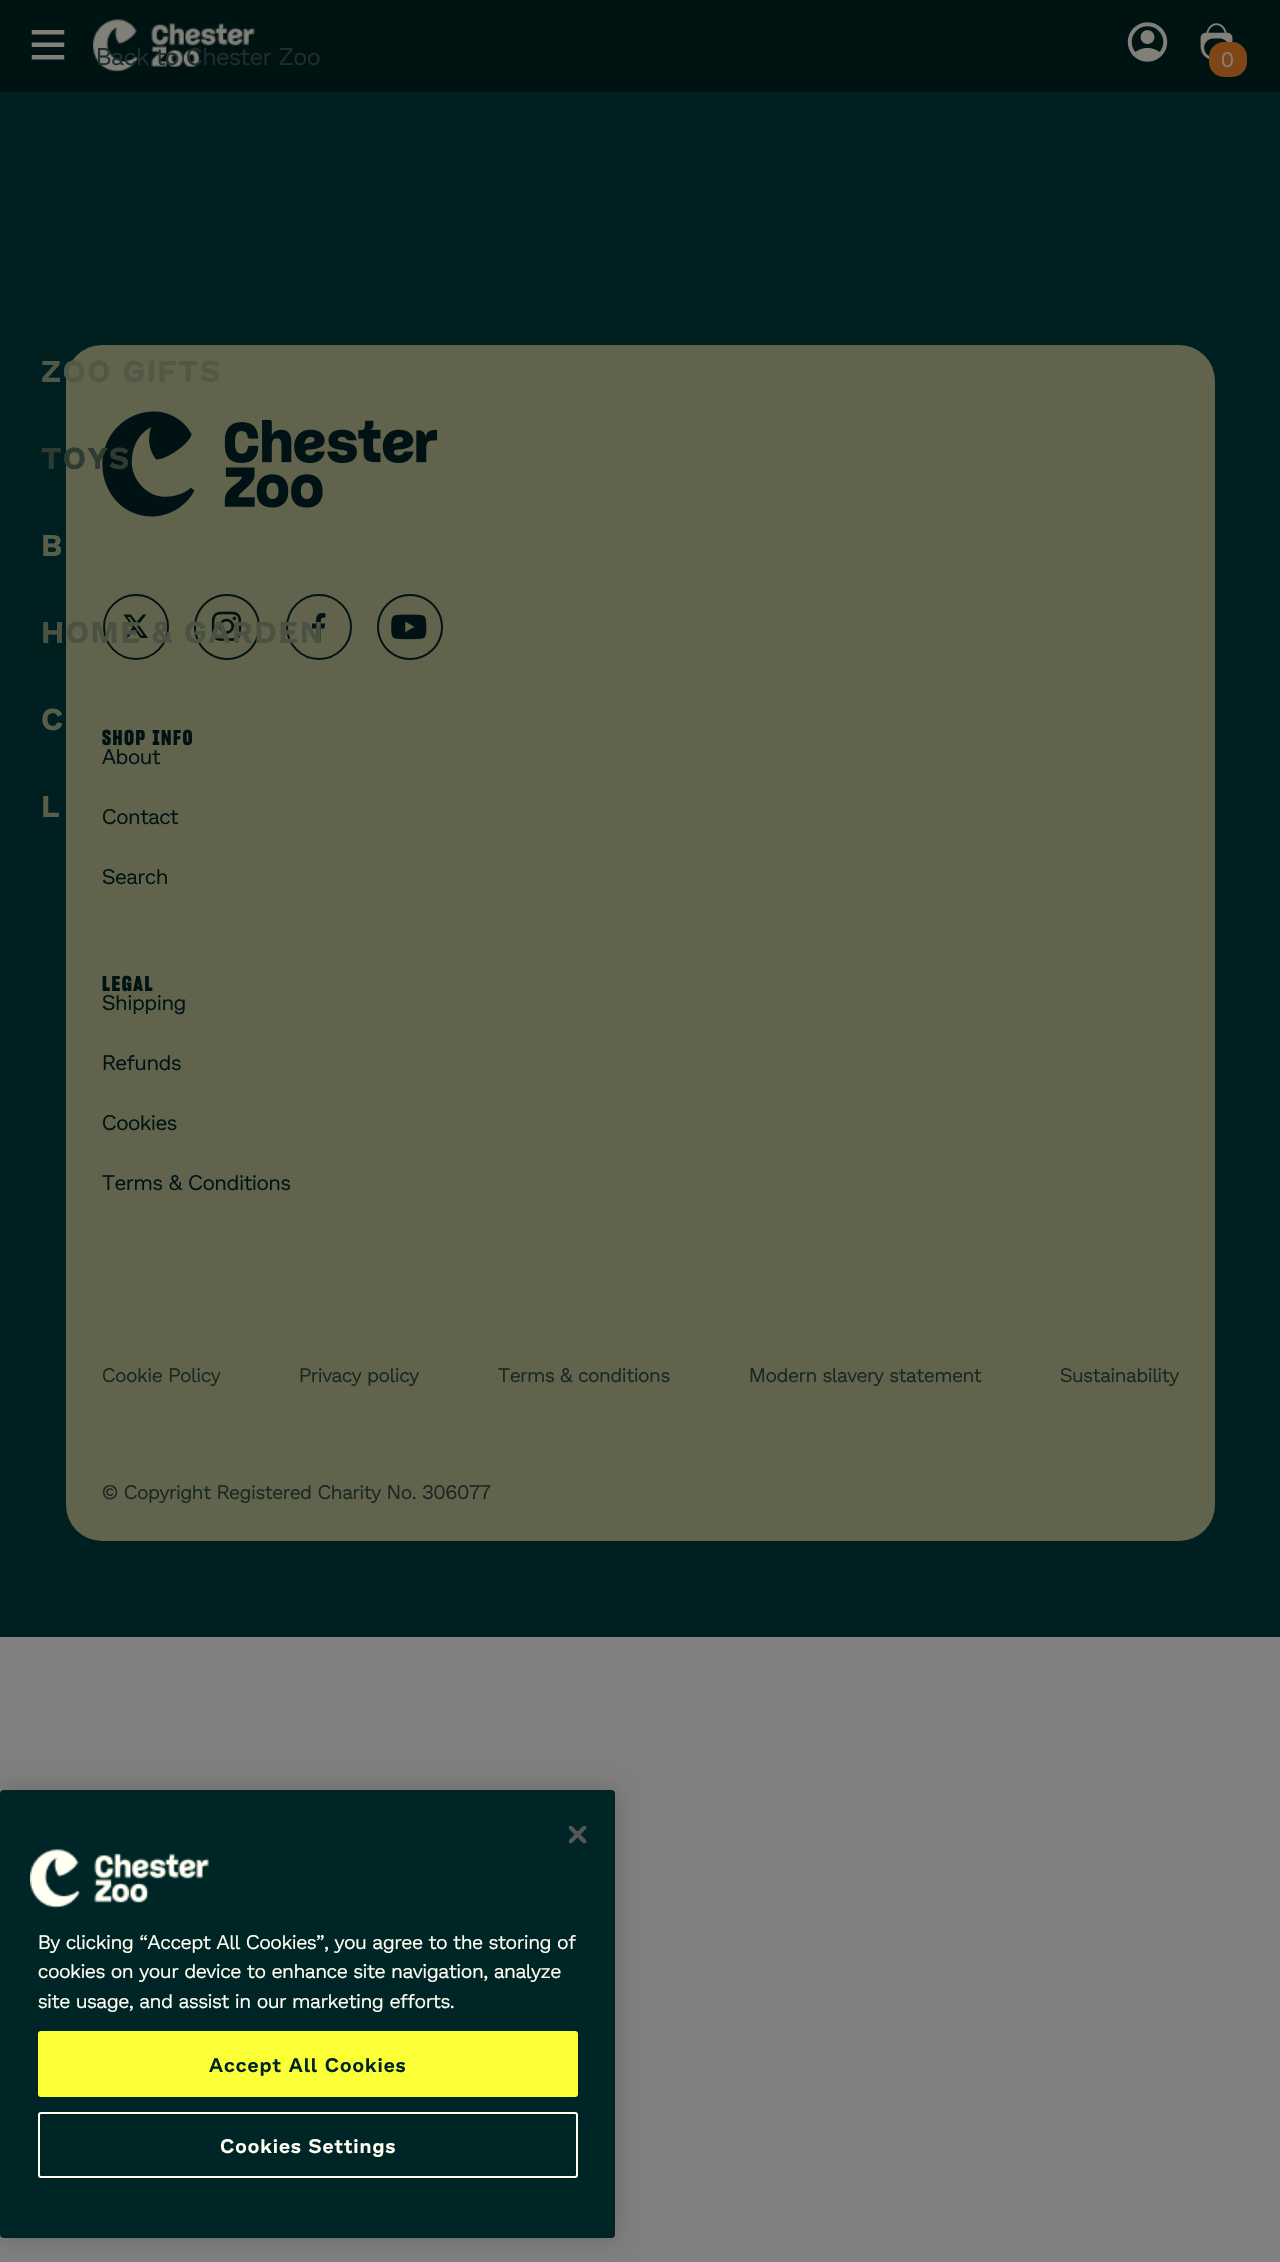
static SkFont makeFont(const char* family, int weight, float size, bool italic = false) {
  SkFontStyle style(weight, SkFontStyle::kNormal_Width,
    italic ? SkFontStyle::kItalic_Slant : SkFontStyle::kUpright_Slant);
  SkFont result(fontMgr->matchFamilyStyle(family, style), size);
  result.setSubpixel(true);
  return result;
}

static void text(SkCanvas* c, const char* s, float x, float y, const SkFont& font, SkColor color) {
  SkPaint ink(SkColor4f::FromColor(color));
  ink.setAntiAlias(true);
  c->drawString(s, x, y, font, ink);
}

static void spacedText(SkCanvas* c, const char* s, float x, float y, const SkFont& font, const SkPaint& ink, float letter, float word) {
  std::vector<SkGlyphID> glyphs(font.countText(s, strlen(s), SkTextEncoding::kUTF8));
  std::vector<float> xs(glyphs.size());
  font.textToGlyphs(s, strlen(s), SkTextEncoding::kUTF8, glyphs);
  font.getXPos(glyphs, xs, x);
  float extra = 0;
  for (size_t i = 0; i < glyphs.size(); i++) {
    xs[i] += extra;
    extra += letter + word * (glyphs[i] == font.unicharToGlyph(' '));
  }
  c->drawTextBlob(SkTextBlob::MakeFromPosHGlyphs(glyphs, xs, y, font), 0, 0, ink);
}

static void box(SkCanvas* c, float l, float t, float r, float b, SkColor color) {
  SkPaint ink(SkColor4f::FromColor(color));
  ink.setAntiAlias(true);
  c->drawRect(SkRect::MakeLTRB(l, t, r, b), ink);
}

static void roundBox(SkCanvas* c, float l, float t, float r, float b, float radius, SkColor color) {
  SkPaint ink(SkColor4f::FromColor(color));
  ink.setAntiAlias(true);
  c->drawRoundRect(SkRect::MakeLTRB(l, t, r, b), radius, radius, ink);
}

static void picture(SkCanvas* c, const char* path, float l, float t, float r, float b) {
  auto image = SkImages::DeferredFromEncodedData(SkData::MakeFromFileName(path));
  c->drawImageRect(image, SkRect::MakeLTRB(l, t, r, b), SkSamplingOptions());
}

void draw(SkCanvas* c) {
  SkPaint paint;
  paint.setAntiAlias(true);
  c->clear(0xff808080);
  box(c, 0, 92, 1280, 1637, 0xff001f20);
  box(c, 0, 0, 1280, 92, 0xff001313);
  picture(c, "img_02.png", 93, 19, 255, 72);
  SkFont face1 = makeFont("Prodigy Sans", 400, 24);
  text(c, "Back to Chester Zoo", 96, 65, face1, 0xff1f2d2c);
  roundBox(c, 66, 345, 1215, 1541, 36, 0xff61634c);
  SkFont face2 = makeFont("Prodigy Sans", 700, 30);
  paint.setColor(0xff515845);
  spacedText(c, "ZOO GIFTS", 41, 382, face2, paint, 1.5f, 0);
  picture(c, "img_05.png", 102, 411, 438, 517);
  paint.setColor(0xff2e3b31);
  spacedText(c, "TOYS", 41, 469, face2, paint, 1.5f, 0);
  paint.setColor(0xff595e49);
  spacedText(c, "B", 41, 556, face2, paint, 1.5f, 0);
  paint.setStyle(SkPaint::kStroke_Style);
  paint.setStrokeWidth(2);
  paint.setColor(0xff001313);
  c->drawCircle(136, 627, 32, paint);
  paint.setStyle(SkPaint::kFill_Style);
  c->drawPath(SkPathBuilder(SkPathFillType::kEvenOdd).moveTo(143, 614.5f).lineTo(146.5f, 614.5f).lineTo(138.5f, 624.5f).lineTo(148, 638).lineTo(140.5f, 638).lineTo(134.5f, 630).lineTo(127.5f, 638).lineTo(124, 638).lineTo(132.5f, 627.5f).lineTo(123.5f, 614.5f).lineTo(131, 614.5f).lineTo(136.5f, 622).close().moveTo(141.5f, 635.5f).lineTo(143.5f, 635.5f).lineTo(130, 617).lineTo(127.5f, 617).close().detach(), paint);
  picture(c, "img_06.png", 194, 594, 260, 660);
  paint.setStyle(SkPaint::kStroke_Style);
  c->drawCircle(319, 627, 32, paint);
  paint.setStyle(SkPaint::kFill_Style);
  c->drawPath(SkPathBuilder(SkPathFillType::kEvenOdd).moveTo(324.5f, 628.5f).lineTo(325, 623.5f).lineTo(321, 623.5f).cubicTo(321, 619, 320, 617.5f, 325.5f, 617.5f).lineTo(325.5f, 613.5f).cubicTo(316.5f, 611.5f, 316, 616.5f, 316, 623.5f).lineTo(312, 623.5f).lineTo(312, 628.5f).lineTo(316, 628.5f).lineTo(316, 641).lineTo(321, 641).lineTo(321, 628.5f).close().detach(), paint);
  paint.setColor(0xff4c5241);
  spacedText(c, "HOME & GARDEN", 41, 643, face2, paint, 1.5f, 0);
  paint.setColor(0xff595e49);
  spacedText(c, "C", 41, 730, face2, paint, 1.5f, 0);
  spacedText(c, "L", 41, 817, face2, paint, 1.5f, 0);
  picture(c, "img_01.png", 31, 30, 65, 60);
  picture(c, "img_03.png", 1127, 22, 1168, 62);
  picture(c, "img_04.png", 1200, 23, 1233, 60);
  roundBox(c, 1209, 42, 1247, 77, 15, 0xff804515);
  SkFont face3 = makeFont("Prodigy Sans", 400, 21);
  text(c, "0", 1221, 67, face3, 0xff808080);
  picture(c, "img_07.png", 377, 594, 443, 660);
  SkFont face4 = makeFont("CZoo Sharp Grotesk", 700, 21);
  paint.setColor(0xff001313);
  spacedText(c, "SHOP INFO", 102, 745, face4, paint, 1.5f, 0);
  text(c, "About", 102, 764, face3, 0xff001313);
  text(c, "Contact", 102, 824, face3, 0xff001313);
  text(c, "Search", 102, 884, face3, 0xff001313);
  spacedText(c, "LEGAL", 102, 991, face4, paint, 1.5f, 0);
  text(c, "Shipping", 102, 1010, face3, 0xff001313);
  text(c, "Refunds", 102, 1070, face3, 0xff001313);
  text(c, "Cookies", 102, 1130, face3, 0xff001313);
  text(c, "Terms & Conditions", 102, 1190, face3, 0xff001313);
  SkFont face5 = makeFont("Prodigy Sans", 400, 19.5f);
  text(c, "Cookie Policy", 102, 1382, face5, 0xff182722);
  text(c, "Privacy policy", 299, 1382, face5, 0xff182722);
  text(c, "Terms & conditions", 498, 1382, face5, 0xff182722);
  text(c, "Modern slavery statement", 749, 1382, face5, 0xff182722);
  text(c, "Sustainability", 1060, 1382, face5, 0xff182722);
  text(c, "© Copyright Registered Charity No. 306077", 102, 1499, face5, 0xff182722);
  paint.setColor(0x33000000);
  paint.setMaskFilter(SkMaskFilter::MakeBlur(kNormal_SkBlurStyle, 13.5f));
  c->drawRoundRect(SkRect::MakeLTRB(0, 1790, 615, 2238), 4, 4, paint);
  paint.setMaskFilter(nullptr);
  roundBox(c, 0, 1790, 615, 2238, 4, 0xff002526);
  picture(c, "img_08.png", 569, 1826, 587, 1844);
  picture(c, "img_09.png", 30, 1849, 209, 1908);
  SkFont face6 = makeFont("Prodigy Sans", 400, 19.7f);
  text(c, "By clicking “Accept All Cookies”, you agree to the storing of", 38, 1949, face6, 0xfffffff2);
  text(c, "cookies on your device to enhance site navigation, analyze", 38, 1978, face6, 0xfffffff2);
  text(c, "site usage, and assist in our marketing efforts.", 38, 2008, face6, 0xfffffff2);
  paint.setColor(0xfffbff36);
  c->drawRoundRect(SkRect::MakeLTRB(39, 2032, 577, 2096), 2, 2, paint);
  paint.setStyle(SkPaint::kStroke_Style);
  c->drawRoundRect(SkRect::MakeLTRB(39, 2032, 577, 2096), 2, 2, paint);
  SkFont face7 = makeFont("Prodigy Sans", 600, 19.7f);
  paint.setStyle(SkPaint::kFill_Style);
  paint.setColor(0xff002526);
  spacedText(c, "Accept All Cookies", 209, 2072, face7, paint, 1, 0);
  paint.setStyle(SkPaint::kStroke_Style);
  paint.setColor(0xfffffff2);
  c->drawRoundRect(SkRect::MakeLTRB(39, 2113, 577, 2177), 2, 2, paint);
  paint.setStyle(SkPaint::kFill_Style);
  spacedText(c, "Cookies Settings", 220, 2153, face7, paint, 1, 0);
}
